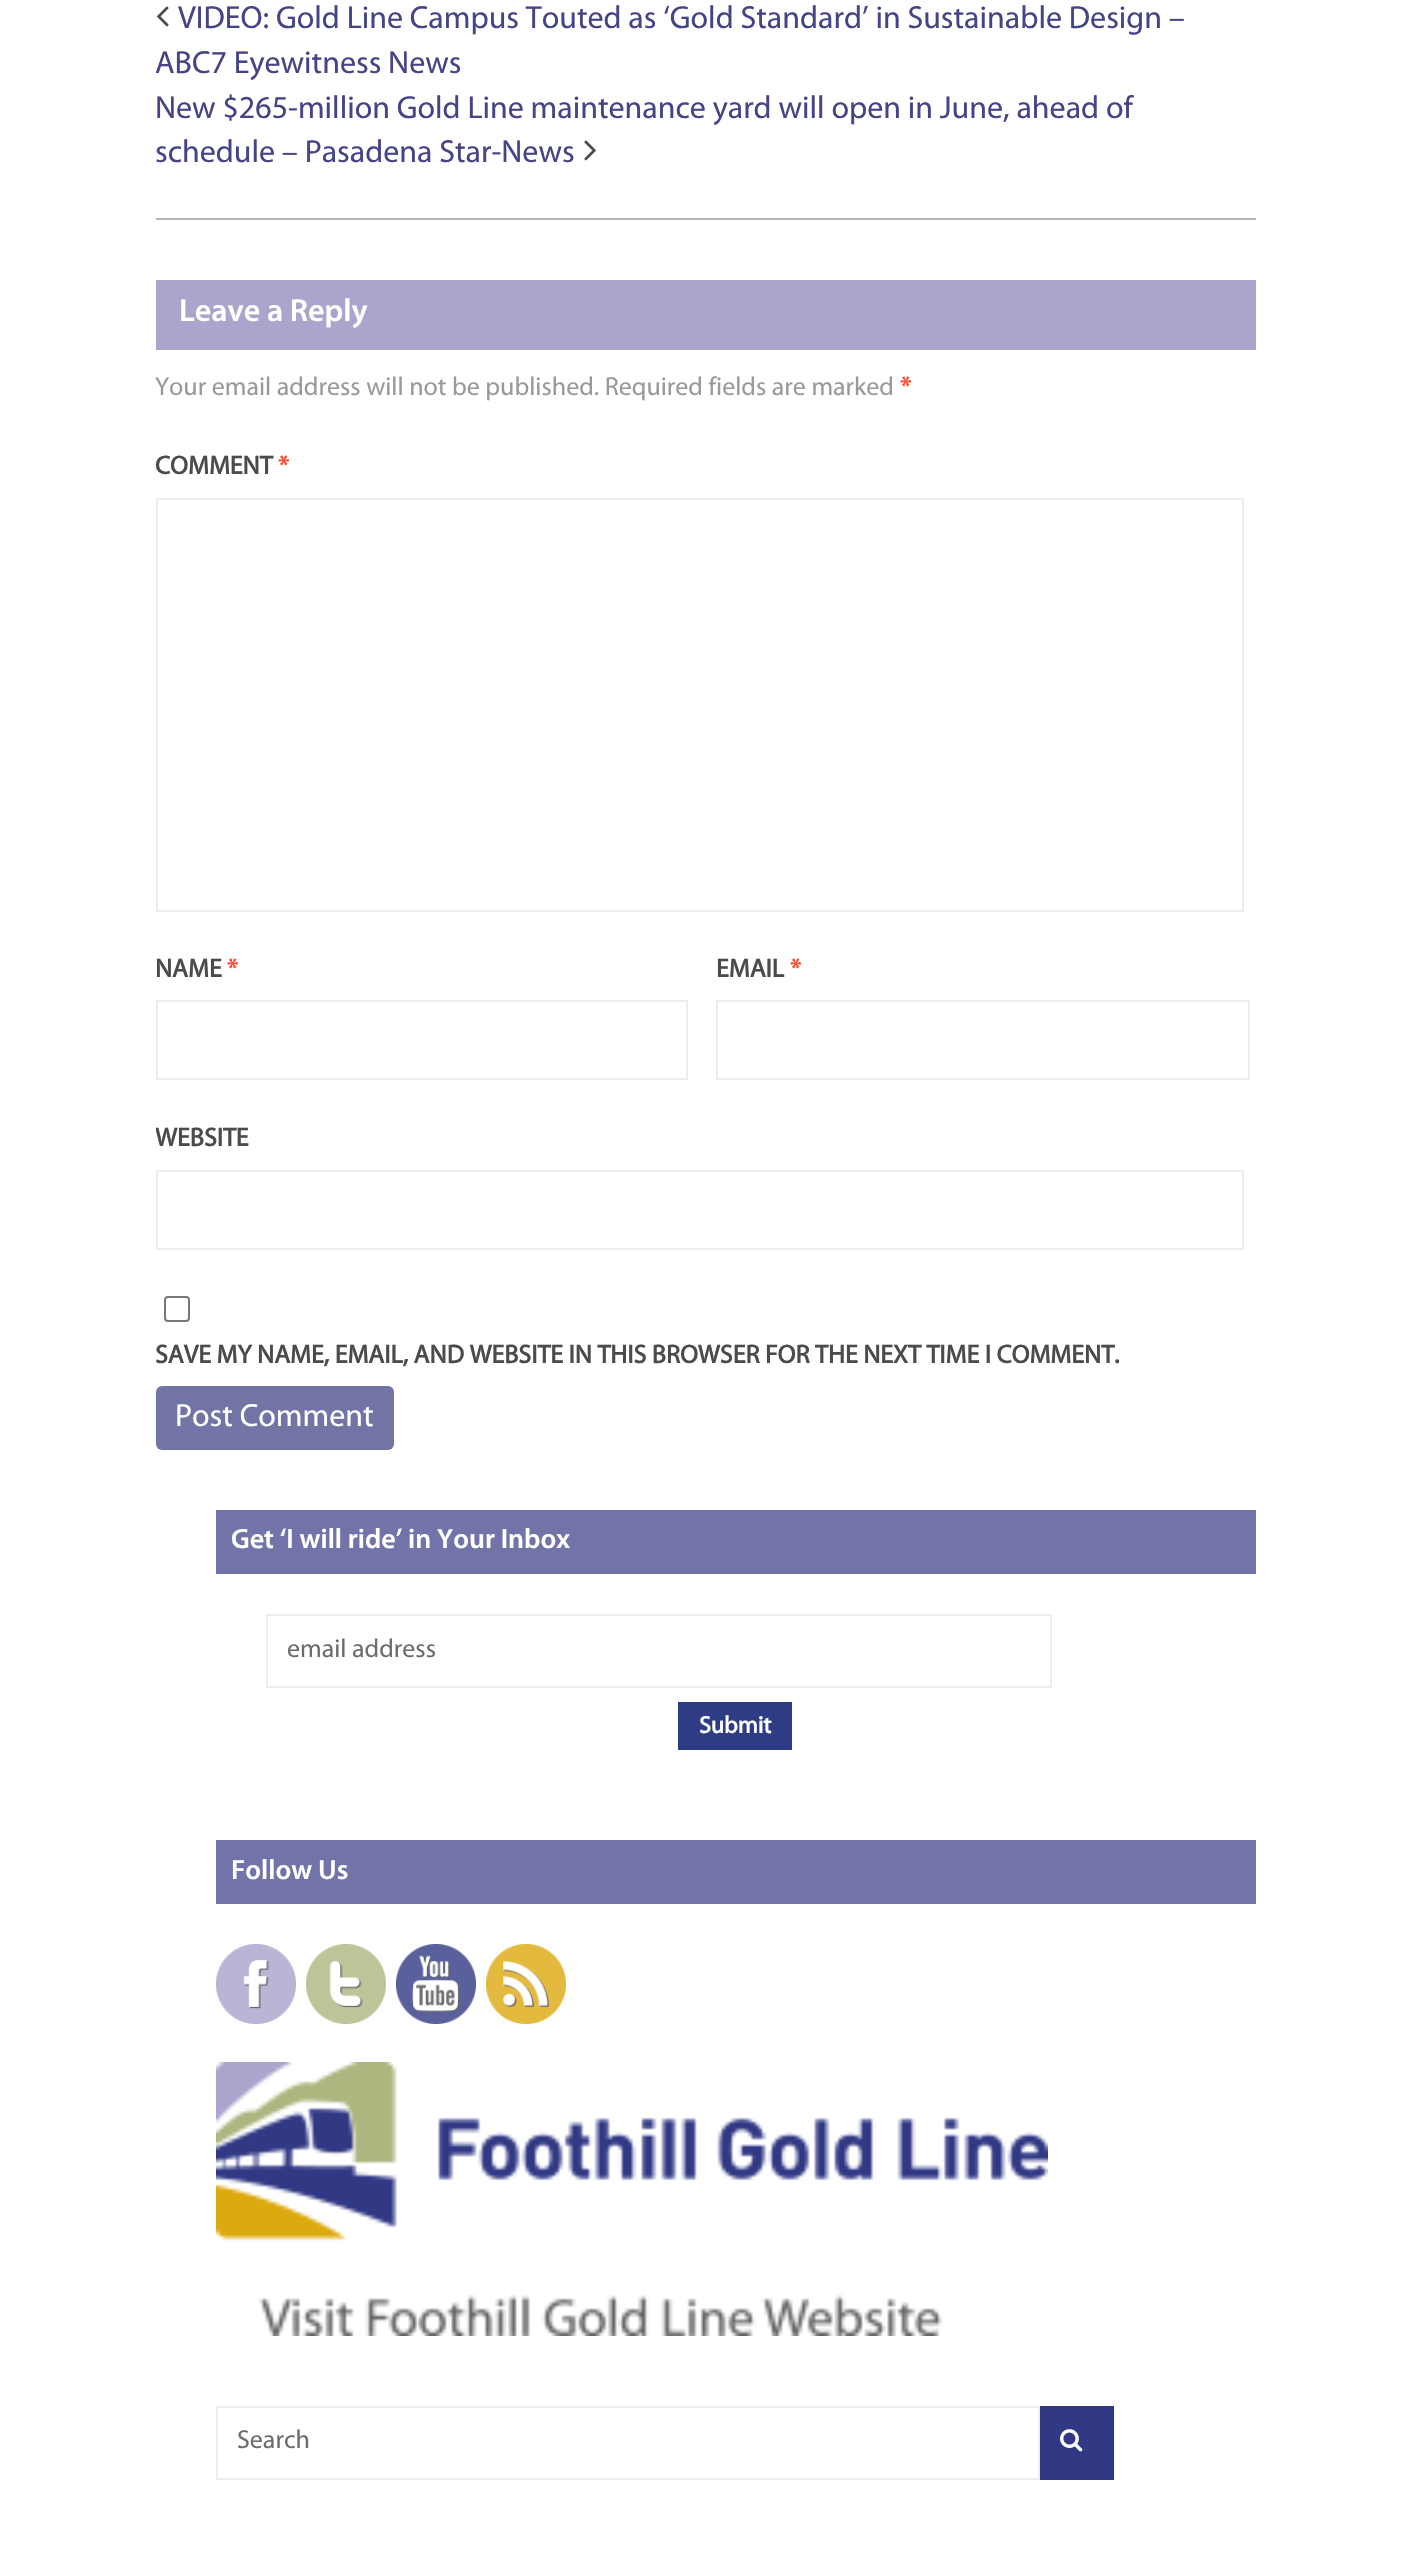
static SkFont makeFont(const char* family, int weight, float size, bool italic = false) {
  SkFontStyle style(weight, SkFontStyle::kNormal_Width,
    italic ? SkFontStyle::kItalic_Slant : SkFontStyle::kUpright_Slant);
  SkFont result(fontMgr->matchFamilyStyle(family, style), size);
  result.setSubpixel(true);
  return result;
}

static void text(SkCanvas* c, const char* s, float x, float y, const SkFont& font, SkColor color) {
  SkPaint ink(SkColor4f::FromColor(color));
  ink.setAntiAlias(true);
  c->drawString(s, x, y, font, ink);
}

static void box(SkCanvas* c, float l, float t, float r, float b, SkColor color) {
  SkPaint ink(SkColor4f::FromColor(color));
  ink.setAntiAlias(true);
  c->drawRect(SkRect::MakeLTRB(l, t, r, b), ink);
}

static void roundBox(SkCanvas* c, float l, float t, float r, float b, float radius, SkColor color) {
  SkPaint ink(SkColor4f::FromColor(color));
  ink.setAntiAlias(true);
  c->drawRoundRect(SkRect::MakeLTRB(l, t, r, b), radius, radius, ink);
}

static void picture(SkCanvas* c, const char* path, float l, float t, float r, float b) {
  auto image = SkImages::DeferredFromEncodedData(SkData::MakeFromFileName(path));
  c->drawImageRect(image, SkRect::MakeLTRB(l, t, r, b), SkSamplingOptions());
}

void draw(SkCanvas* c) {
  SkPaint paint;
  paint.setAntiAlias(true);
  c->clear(0xffffffff);
  picture(c, "img_01.png", 156, 6, 169, 27);
  SkFont face1 = makeFont("Myriad", 400, 32);
  text(c, "VIDEO: Gold Line Campus Touted as ‘Gold Standard’ in Sustainable Design –", 178, 28, face1, 0xff444487);
  text(c, "ABC7 Eyewitness News", 155, 73, face1, 0xff444487);
  text(c, "New $265-million Gold Line maintenance yard will open in June, ahead of", 155, 118, face1, 0xff444487);
  text(c, "schedule – Pasadena Star-News", 155, 162, face1, 0xff444487);
  picture(c, "img_02.png", 584, 140, 596, 161);
  box(c, 156, 218, 1256, 220, 0xffb4b4b4);
  box(c, 156, 280, 1256, 350, 0xffaaa5cd);
  SkFont face2 = makeFont("Myriad", 600, 32);
  text(c, "Leave a Reply", 179, 321, face2, 0xffffffff);
  SkFont face3 = makeFont("Myriad", 400, 26);
  text(c, "Your email address will not be published. Required fields are marked", 155, 395, face3, 0xff999999);
  SkFont face4 = makeFont("Myriad", 700, 26);
  text(c, "*", 900, 395, face4, 0xffff4b33);
  text(c, "COMMENT", 155, 474, face4, 0xff4b4b4b);
  text(c, "*", 278, 474, face4, 0xffff4b33);
  paint.setStyle(SkPaint::kStroke_Style);
  paint.setStrokeWidth(2);
  paint.setColor(0xffececec);
  c->drawRect(SkRect::MakeLTRB(157, 499, 1243, 911), paint);
  text(c, "NAME", 155, 977, face4, 0xff4b4b4b);
  text(c, "*", 227, 977, face4, 0xffff4b33);
  c->drawRect(SkRect::MakeLTRB(157, 1001, 687, 1079), paint);
  text(c, "EMAIL", 716, 977, face4, 0xff4b4b4b);
  text(c, "*", 790, 977, face4, 0xffff4b33);
  c->drawRect(SkRect::MakeLTRB(717, 1001, 1249, 1079), paint);
  c->save();
  c->clipRect(SkRect::MakeLTRB(156, 250, 1256, 1510));
  text(c, "WEBSITE", 155, 1146, face4, 0xff4b4b4b);
  c->restore();
  c->drawRect(SkRect::MakeLTRB(157, 1171, 1243, 1249), paint);
  paint.setColor(0xff767676);
  c->drawRoundRect(SkRect::MakeLTRB(165, 1297, 189, 1321), 3, 3, paint);
  text(c, "SAVE MY NAME, EMAIL, AND WEBSITE IN THIS BROWSER FOR THE NEXT TIME I COMMENT.", 155, 1363, face4, 0xff4b4b4b);
  roundBox(c, 156, 1386, 394, 1450, 6, 0xff7274a6);
  text(c, "Post Comment", 175, 1426, face1, 0xffffffff);
  box(c, 216, 1510, 1256, 1574, 0xff7273a8);
  SkFont face5 = makeFont("Myriad", 600, 28);
  text(c, "Get ‘I will ride’ in Your Inbox", 231, 1548, face5, 0xffffffff);
  paint.setColor(0xffeeeeee);
  c->drawRect(SkRect::MakeLTRB(267, 1615, 1051, 1687), paint);
  text(c, "email address", 287, 1657, face3, 0xff6d6c6c);
  box(c, 678, 1702, 792, 1750, 0xff2d3c85);
  SkFont face6 = makeFont("Myriad", 700, 24);
  text(c, "Submit", 699, 1733, face6, 0xffffffff);
  box(c, 216, 1840, 1256, 1904, 0xff7273a8);
  text(c, "Follow Us", 231, 1879, face5, 0xffffffff);
  picture(c, "img_03.png", 216, 1944, 296, 2024);
  picture(c, "img_04.png", 306, 1944, 386, 2024);
  picture(c, "img_05.png", 396, 1944, 476, 2024);
  picture(c, "img_06.png", 486, 1944, 566, 2024);
  picture(c, "img_07.png", 216, 2062, 1048, 2336);
  c->drawRect(SkRect::MakeLTRB(217, 2407, 1039, 2479), paint);
  text(c, "Search", 237, 2448, face3, 0xff6d6c6c);
  box(c, 1040, 2406, 1114, 2480, 0xff313984);
  picture(c, "img_08.png", 1060, 2429, 1083, 2452);
}
